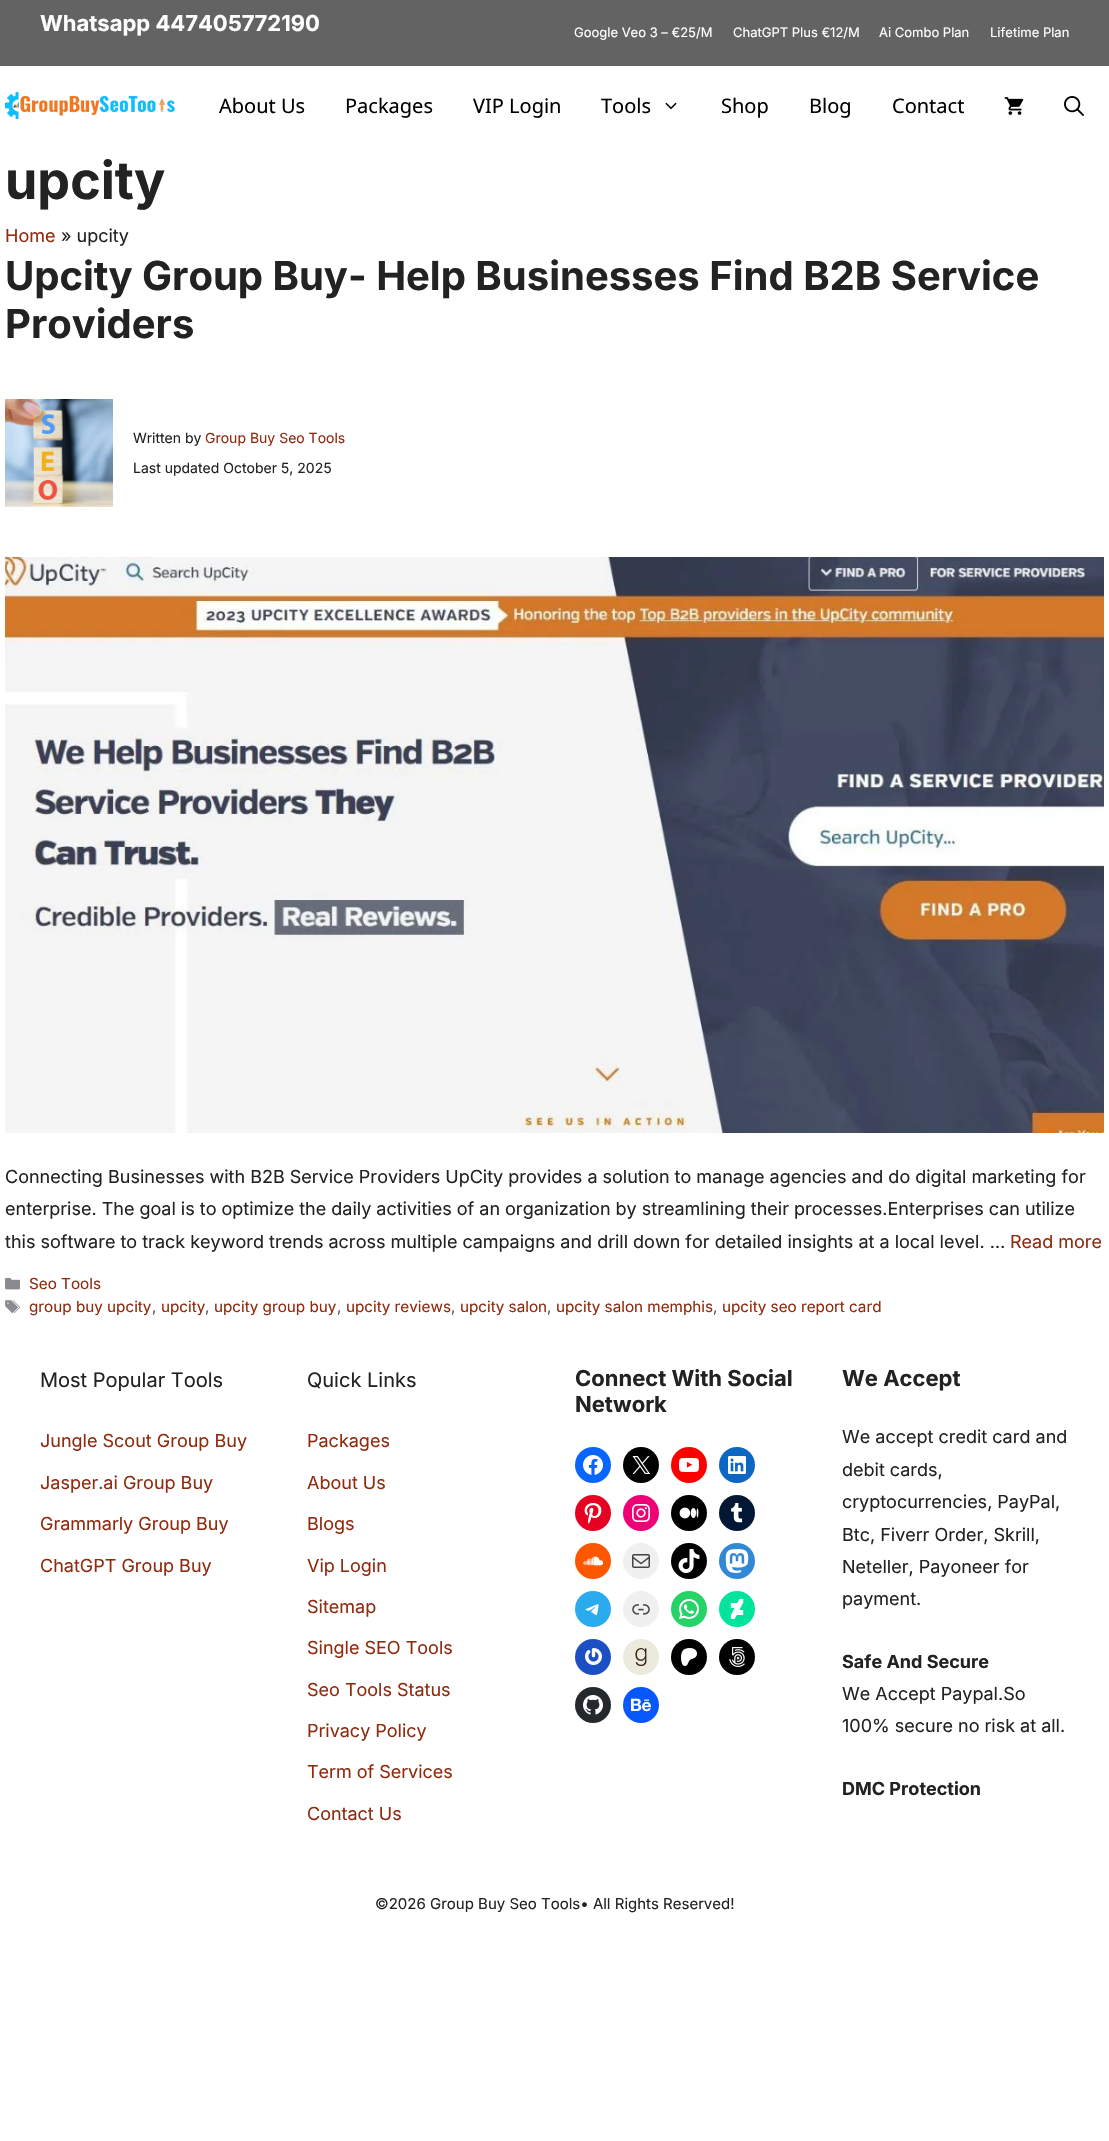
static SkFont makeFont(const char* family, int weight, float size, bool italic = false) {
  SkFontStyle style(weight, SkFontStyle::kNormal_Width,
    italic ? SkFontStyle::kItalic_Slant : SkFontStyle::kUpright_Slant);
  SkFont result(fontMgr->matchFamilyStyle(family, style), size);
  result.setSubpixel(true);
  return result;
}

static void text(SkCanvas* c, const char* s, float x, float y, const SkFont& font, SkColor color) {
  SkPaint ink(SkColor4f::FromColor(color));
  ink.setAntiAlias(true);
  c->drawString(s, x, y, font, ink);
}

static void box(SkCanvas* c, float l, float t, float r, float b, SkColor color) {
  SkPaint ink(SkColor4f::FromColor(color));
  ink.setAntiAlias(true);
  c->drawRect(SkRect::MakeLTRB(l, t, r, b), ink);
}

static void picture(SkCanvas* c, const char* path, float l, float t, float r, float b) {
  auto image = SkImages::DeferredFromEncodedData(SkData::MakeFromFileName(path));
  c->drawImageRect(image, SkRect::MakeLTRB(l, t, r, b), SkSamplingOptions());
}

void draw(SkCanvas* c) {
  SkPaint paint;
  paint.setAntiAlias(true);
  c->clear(0xffffffff);
  box(c, 0, 0, 1109, 66, 0xff636363);
  SkFont face1 = makeFont("Inter", 700, 22);
  text(c, "Whatsapp 447405772190", 40, 31, face1, 0xffffffff);
  SkFont face2 = makeFont("Inter", 400, 13);
  text(c, "Google Veo 3 – €25/M", 574, 37, face2, 0xffffffff);
  text(c, "ChatGPT Plus €12/M", 733, 37, face2, 0xffffffff);
  text(c, "Ai Combo Plan", 879, 37, face2, 0xffffffff);
  text(c, "Lifetime Plan", 990, 37, face2, 0xffffffff);
  picture(c, "img_01.png", 5, 92, 175, 119);
  SkFont face3 = makeFont("Noto Sans", 400, 20);
  text(c, "About Us", 219, 113, face3, 0xff000000);
  text(c, "Packages", 345, 113, face3, 0xff000000);
  text(c, "VIP Login", 473, 113, face3, 0xff000000);
  text(c, "Tools", 601, 113, face3, 0xff000000);
  picture(c, "img_02.png", 665, 102, 677, 110);
  text(c, "Shop", 721, 113, face3, 0xff000000);
  text(c, "Blog", 809, 113, face3, 0xff000000);
  text(c, "Contact", 892, 113, face3, 0xff000000);
  picture(c, "img_03.png", 1004, 97, 1024, 115);
  picture(c, "img_04.png", 1064, 96, 1084, 116);
  SkFont face4 = makeFont("Inter", 700, 52);
  text(c, "upcity", 5, 199, face4, 0xff222222);
  SkFont face5 = makeFont("Inter", 400, 18);
  text(c, "Home", 5, 242, face5, 0xff8f2c10);
  text(c, "» upcity", 61, 242, face5, 0xff222222);
  SkFont face6 = makeFont("Inter", 700, 40);
  text(c, "Upcity Group Buy- Help Businesses Find B2B Service", 5, 290, face6, 0xff222222);
  text(c, "Providers", 5, 338, face6, 0xff222222);
  picture(c, "img_05.png", 5, 399, 113, 507);
  SkFont face7 = makeFont("Inter", 400, 14);
  text(c, "Written by", 133, 443, face7, 0xff222222);
  text(c, "Group Buy Seo Tools", 205, 443, face7, 0xff8f2c10);
  text(c, "Last updated October 5, 2025", 133, 473, face7, 0xff222222);
  picture(c, "img_06.png", 5, 557, 1104, 1133);
  text(c, "Connecting Businesses with B2B Service Providers UpCity provides a solution to manage agencies and do digital marketing for", 5, 1183, face5, 0xff222222);
  text(c, "enterprise. The goal is to optimize the daily activities of an organization by streamlining their processes.Enterprises can utilize", 5, 1215, face5, 0xff222222);
  text(c, "this software to track keyword trends across multiple campaigns and drill down for detailed insights at a local level. …", 5, 1248, face5, 0xff222222);
  text(c, "Read more", 1010, 1248, face5, 0xff8f2c10);
  picture(c, "img_07.png", 5, 1277, 20, 1290);
  SkFont face8 = makeFont("Inter", 400, 15.25f);
  text(c, "Seo Tools", 29, 1289, face8, 0xff8f2c10);
  picture(c, "img_08.png", 5, 1300, 20, 1313);
  text(c, "group buy upcity", 29, 1312, face8, 0xff8f2c10);
  text(c, ",", 152, 1312, face8, 0xff575760);
  text(c, "upcity", 161, 1312, face8, 0xff8f2c10);
  text(c, ",", 205, 1312, face8, 0xff575760);
  text(c, "upcity group buy", 214, 1312, face8, 0xff8f2c10);
  text(c, ",", 337, 1312, face8, 0xff575760);
  text(c, "upcity reviews", 346, 1312, face8, 0xff8f2c10);
  text(c, ",", 451, 1312, face8, 0xff575760);
  text(c, "upcity salon", 460, 1312, face8, 0xff8f2c10);
  text(c, ",", 547, 1312, face8, 0xff575760);
  text(c, "upcity salon memphis", 556, 1312, face8, 0xff8f2c10);
  text(c, ",", 713, 1312, face8, 0xff575760);
  text(c, "upcity seo report card", 722, 1312, face8, 0xff8f2c10);
  SkFont face9 = makeFont("Inter", 400, 20);
  text(c, "Most Popular Tools", 40, 1387, face9, 0xff222222);
  text(c, "Jungle Scout Group Buy", 40, 1447, face5, 0xff8f2c10);
  text(c, "Jasper.ai Group Buy", 40, 1489, face5, 0xff8f2c10);
  text(c, "Grammarly Group Buy", 40, 1530, face5, 0xff8f2c10);
  text(c, "ChatGPT Group Buy", 40, 1572, face5, 0xff8f2c10);
  text(c, "Quick Links", 307, 1387, face9, 0xff222222);
  text(c, "Packages", 307, 1447, face5, 0xff8f2c10);
  text(c, "About Us", 307, 1489, face5, 0xff8f2c10);
  text(c, "Blogs", 307, 1530, face5, 0xff8f2c10);
  text(c, "Vip Login", 307, 1572, face5, 0xff8f2c10);
  text(c, "Sitemap", 307, 1613, face5, 0xff8f2c10);
  text(c, "Single SEO Tools", 307, 1654, face5, 0xff8f2c10);
  text(c, "Seo Tools Status", 307, 1696, face5, 0xff8f2c10);
  text(c, "Privacy Policy", 307, 1737, face5, 0xff8f2c10);
  text(c, "Term of Services", 307, 1778, face5, 0xff8f2c10);
  text(c, "Contact Us", 307, 1820, face5, 0xff8f2c10);
  text(c, "Connect With Social", 575, 1386, face1, 0xff222222);
  text(c, "Network", 575, 1412, face1, 0xff222222);
  paint.setColor(0xff0866ff);
  c->drawCircle(593, 1465, 18, paint);
  picture(c, "img_09.png", 583, 1455, 603, 1475);
  paint.setColor(0xff000000);
  c->drawCircle(641, 1465, 18, paint);
  picture(c, "img_10.png", 632, 1456, 650, 1474);
  paint.setColor(0xffff0000);
  c->drawCircle(689, 1465, 18, paint);
  picture(c, "img_11.png", 679, 1458, 699, 1472);
  paint.setColor(0xff0d66c2);
  c->drawCircle(737, 1465, 18, paint);
  picture(c, "img_12.png", 728, 1456, 746, 1474);
  paint.setColor(0xffe60122);
  c->drawCircle(593, 1513, 18, paint);
  picture(c, "img_13.png", 584, 1503, 602, 1524);
  paint.setColor(0xfff00075);
  c->drawCircle(641, 1513, 18, paint);
  picture(c, "img_14.png", 632, 1504, 650, 1522);
  paint.setColor(0xff000000);
  c->drawCircle(689, 1513, 18, paint);
  picture(c, "img_15.png", 679, 1507, 699, 1519);
  paint.setColor(0xff011835);
  c->drawCircle(737, 1513, 18, paint);
  picture(c, "img_16.png", 731, 1503, 743, 1523);
  paint.setColor(0xffff5600);
  c->drawCircle(593, 1561, 18, paint);
  picture(c, "img_17.png", 583, 1556, 604, 1566);
  paint.setColor(0xfff0f0f0);
  c->drawCircle(641, 1561, 18, paint);
  picture(c, "img_18.png", 632, 1554, 650, 1568);
  paint.setColor(0xff000000);
  c->drawCircle(689, 1561, 18, paint);
  picture(c, "img_19.png", 678, 1549, 700, 1573);
  paint.setColor(0xff3288d4);
  c->drawCircle(737, 1561, 18, paint);
  picture(c, "img_20.png", 725, 1549, 749, 1573);
  paint.setColor(0xff2aabee);
  c->drawCircle(593, 1609, 18, paint);
  picture(c, "img_21.png", 585, 1604, 599, 1615);
  paint.setColor(0xfff0f0f0);
  c->drawCircle(641, 1609, 18, paint);
  picture(c, "img_22.png", 632, 1604, 650, 1615);
  paint.setColor(0xff25d366);
  c->drawCircle(689, 1609, 18, paint);
  picture(c, "img_23.png", 679, 1599, 699, 1619);
  paint.setColor(0xff02e49b);
  c->drawCircle(737, 1609, 18, paint);
  picture(c, "img_24.png", 730, 1599, 744, 1619);
  paint.setColor(0xff1d4fc4);
  c->drawCircle(593, 1657, 18, paint);
  picture(c, "img_25.png", 585, 1648, 602, 1665);
  paint.setColor(0xffeceadd);
  c->drawCircle(641, 1657, 18, paint);
  picture(c, "img_26.png", 635, 1648, 647, 1666);
  paint.setColor(0xff000000);
  c->drawCircle(689, 1657, 18, paint);
  picture(c, "img_27.png", 681, 1648, 697, 1666);
  c->drawCircle(737, 1657, 18, paint);
  picture(c, "img_28.png", 729, 1647, 745, 1667);
  paint.setColor(0xff24292d);
  c->drawCircle(593, 1705, 18, paint);
  picture(c, "img_29.png", 583, 1695, 603, 1715);
  paint.setColor(0xff0757fe);
  c->drawCircle(641, 1705, 18, paint);
  picture(c, "img_30.png", 631, 1698, 651, 1712);
  text(c, "We Accept", 842, 1386, face1, 0xff222222);
  text(c, "We accept credit card and", 842, 1443, face5, 0xff222222);
  text(c, "debit cards,", 842, 1476, face5, 0xff222222);
  text(c, "cryptocurrencies, PayPal,", 842, 1508, face5, 0xff222222);
  text(c, "Btc, Fiverr Order, Skrill,", 842, 1541, face5, 0xff222222);
  text(c, "Neteller, Payoneer for", 842, 1573, face5, 0xff222222);
  text(c, "payment.", 842, 1605, face5, 0xff222222);
  SkFont face10 = makeFont("Inter", 700, 18);
  text(c, "Safe And Secure", 842, 1668, face10, 0xff222222);
  text(c, "We Accept Paypal.So", 842, 1700, face5, 0xff222222);
  text(c, "100% secure no risk at all.", 842, 1732, face5, 0xff222222);
  text(c, "DMC Protection", 842, 1795, face10, 0xff222222);
  SkFont face11 = makeFont("Inter", 400, 15);
  text(c, "©2026 Group Buy Seo Tools• All Rights Reserved!", 375, 1909, face11, 0xff222222);
}
